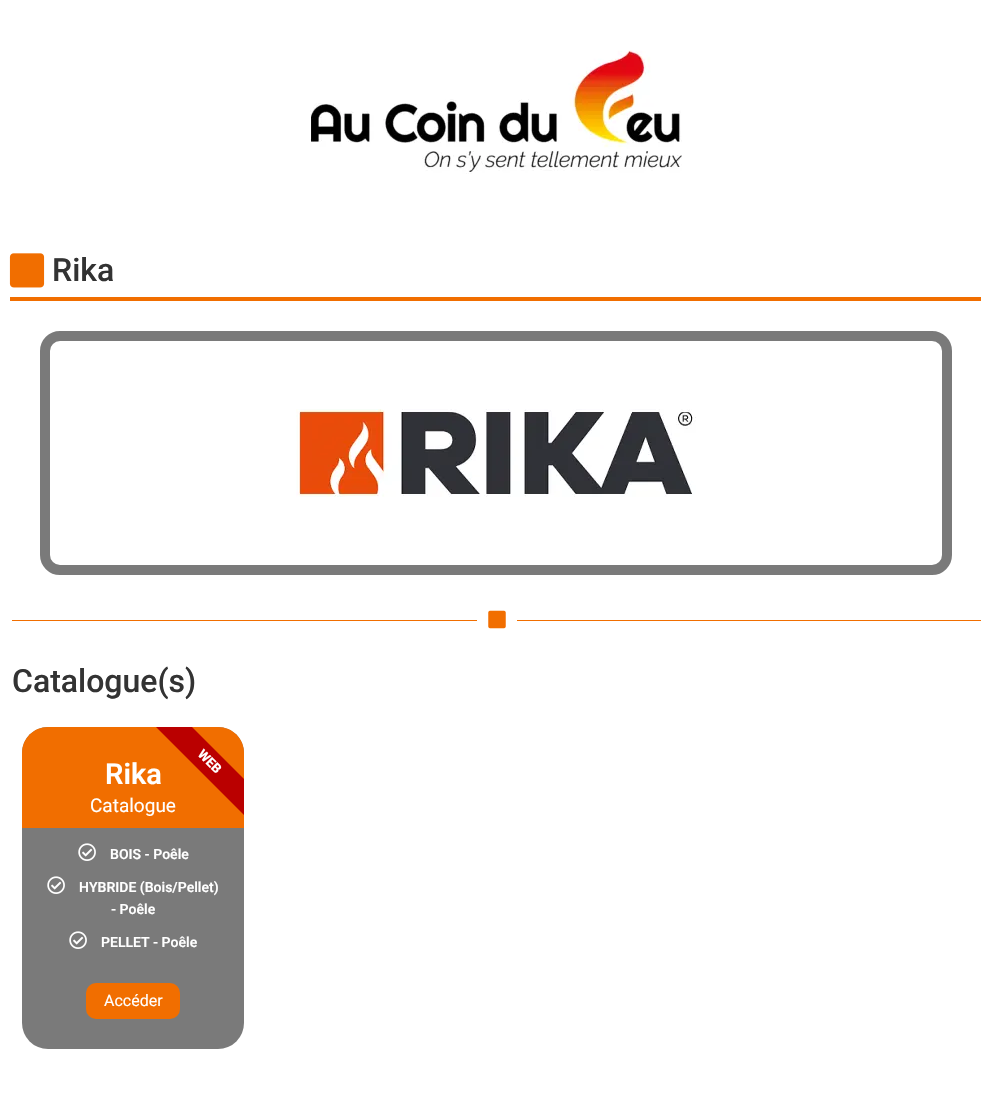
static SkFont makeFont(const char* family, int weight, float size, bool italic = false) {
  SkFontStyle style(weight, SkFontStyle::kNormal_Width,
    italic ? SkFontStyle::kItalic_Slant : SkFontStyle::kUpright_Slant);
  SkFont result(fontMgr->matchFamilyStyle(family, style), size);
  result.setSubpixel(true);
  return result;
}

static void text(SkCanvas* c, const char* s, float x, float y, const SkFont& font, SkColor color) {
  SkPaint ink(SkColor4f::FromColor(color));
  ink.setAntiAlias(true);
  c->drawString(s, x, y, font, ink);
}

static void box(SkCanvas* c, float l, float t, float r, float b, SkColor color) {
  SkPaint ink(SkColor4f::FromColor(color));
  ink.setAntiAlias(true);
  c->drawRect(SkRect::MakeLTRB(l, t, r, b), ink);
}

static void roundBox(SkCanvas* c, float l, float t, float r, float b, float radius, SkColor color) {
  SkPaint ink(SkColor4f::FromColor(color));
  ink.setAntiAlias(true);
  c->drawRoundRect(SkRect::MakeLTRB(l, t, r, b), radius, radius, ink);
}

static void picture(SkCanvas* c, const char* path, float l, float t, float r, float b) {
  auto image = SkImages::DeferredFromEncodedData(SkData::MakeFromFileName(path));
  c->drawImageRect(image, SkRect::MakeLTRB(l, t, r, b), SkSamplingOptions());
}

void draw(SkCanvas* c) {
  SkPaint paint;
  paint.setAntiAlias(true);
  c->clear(0xffffffff);
  picture(c, "img_01.png", 310, 50, 682, 174);
  box(c, 10, 297, 981, 301, 0xfff16e00);
  picture(c, "img_02.png", 9, 253, 45, 288);
  SkFont face1 = makeFont("Roboto", 500, 32);
  text(c, "Rika", 52, 281, face1, 0xff333333);
  paint.setStyle(SkPaint::kStroke_Style);
  paint.setStrokeWidth(10);
  paint.setColor(0xff7a7a7a);
  c->drawRoundRect(SkRect::MakeLTRB(45, 336, 947, 570), 15, 15, paint);
  picture(c, "img_03.png", 296, 409, 696, 497);
  box(c, 12, 620, 477, 621, 0xfff16e00);
  picture(c, "img_04.png", 488, 610, 506, 629);
  box(c, 517, 620, 981, 621, 0xfff16e00);
  text(c, "Catalogue(s)", 12, 692, face1, 0xff333333);
  roundBox(c, 22, 727, 244, 1049, 26, 0xff7a7a7a);
  paint.setStyle(SkPaint::kFill_Style);
  paint.setColor(0xfff16e00);
  c->drawPath(SkPathBuilder().moveTo(48, 727).lineTo(218, 727).cubicTo(232.5f, 727, 244, 738.5f, 244, 753).lineTo(244, 828).lineTo(22, 828).lineTo(22, 753).cubicTo(22, 738.5f, 33.5f, 727, 48, 727).close().detach(), paint);
  SkFont face2 = makeFont("Roboto", 600, 29);
  text(c, "Rika", 105, 784, face2, 0xffffffff);
  SkFont face3 = makeFont("Roboto", 400, 19);
  text(c, "Catalogue", 90, 812, face3, 0xffffffff);
  paint.setColor(0xffba0000);
  c->drawPath(SkPathBuilder().moveTo(244, 815).lineTo(156, 727).lineTo(192, 727).lineTo(244, 779).close().detach(), paint);
  SkFont face4 = makeFont("Roboto", 800, 13);
  c->save();
  c->rotate(45, 197, 755);
  text(c, "WEB", 197, 755, face4, 0xffffffff);
  c->restore();
  picture(c, "img_05.png", 78, 843, 96, 861);
  SkFont face5 = makeFont("Roboto", 600, 14);
  text(c, "BOIS - Poêle", 110, 859, face5, 0xffffffff);
  picture(c, "img_05.png", 47, 876, 65, 894);
  text(c, "HYBRIDE (Bois/Pellet)", 79, 892, face5, 0xffffffff);
  text(c, "- Poêle", 111, 914, face5, 0xffffffff);
  picture(c, "img_05.png", 69, 931, 87, 949);
  text(c, "PELLET - Poêle", 101, 947, face5, 0xffffffff);
  roundBox(c, 86, 983, 180, 1019, 10, 0xfff16e00);
  SkFont face6 = makeFont("Roboto", 400, 16);
  text(c, "Accéder", 104, 1006, face6, 0xffffffff);
}
